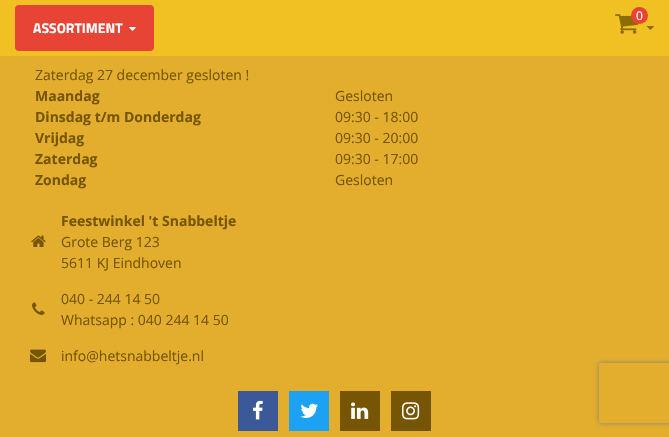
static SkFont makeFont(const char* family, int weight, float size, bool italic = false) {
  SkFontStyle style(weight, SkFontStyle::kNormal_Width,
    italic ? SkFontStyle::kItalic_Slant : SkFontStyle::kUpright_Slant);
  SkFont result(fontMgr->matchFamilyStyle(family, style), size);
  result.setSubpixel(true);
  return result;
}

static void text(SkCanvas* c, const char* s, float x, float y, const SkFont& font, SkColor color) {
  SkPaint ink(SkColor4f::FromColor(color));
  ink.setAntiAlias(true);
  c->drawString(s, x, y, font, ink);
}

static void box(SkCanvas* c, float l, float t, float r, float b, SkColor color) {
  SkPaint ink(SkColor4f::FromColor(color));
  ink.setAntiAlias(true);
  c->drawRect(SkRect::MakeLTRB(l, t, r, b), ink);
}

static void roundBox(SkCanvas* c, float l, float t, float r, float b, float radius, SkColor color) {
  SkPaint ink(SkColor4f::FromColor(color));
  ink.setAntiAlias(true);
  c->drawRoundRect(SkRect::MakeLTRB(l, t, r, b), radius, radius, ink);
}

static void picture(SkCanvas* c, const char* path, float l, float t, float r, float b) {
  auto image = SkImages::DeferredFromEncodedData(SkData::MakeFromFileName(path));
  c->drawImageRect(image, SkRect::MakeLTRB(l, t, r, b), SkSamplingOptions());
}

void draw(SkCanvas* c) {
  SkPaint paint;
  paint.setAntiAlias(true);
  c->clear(0xffe3ae2d);
  box(c, 0, 0, 669, 56, 0xfff1c022);
  picture(c, "img_01.png", 615, 14, 639, 34);
  paint.setColor(0xffe84434);
  c->drawCircle(639.5f, 15.5f, 8.5f, paint);
  SkFont face1 = makeFont("Open Sans", 400, 12);
  text(c, "0", 636, 20, face1, 0xffffffff);
  picture(c, "img_02.png", 647, 26, 654, 30);
  roundBox(c, 15, 5, 154, 51, 4, 0xffe84435);
  SkFont face2 = makeFont("Titillium Web", 700, 14);
  text(c, "ASSORTIMENT", 33, 33, face2, 0xffffffff);
  picture(c, "img_03.png", 129, 27, 136, 31);
  SkFont face3 = makeFont("Open Sans", 400, 14);
  text(c, "Zaterdag 27 december gesloten !", 35, 80, face3, 0xff765504);
  SkFont face4 = makeFont("Open Sans", 700, 14);
  text(c, "Maandag", 35, 101, face4, 0xff765504);
  text(c, "Gesloten", 335, 101, face3, 0xff765504);
  text(c, "Dinsdag t/m Donderdag", 35, 122, face4, 0xff765504);
  text(c, "09:30 - 18:00", 335, 122, face3, 0xff765504);
  text(c, "Vrijdag", 35, 143, face4, 0xff765504);
  text(c, "09:30 - 20:00", 335, 143, face3, 0xff765504);
  text(c, "Zaterdag", 35, 164, face4, 0xff765504);
  text(c, "09:30 - 17:00", 335, 164, face3, 0xff765504);
  text(c, "Zondag", 35, 185, face4, 0xff765504);
  text(c, "Gesloten", 335, 185, face3, 0xff765504);
  picture(c, "img_04.png", 31, 235, 46, 247);
  text(c, "Feestwinkel 't Snabbeltje", 61, 226, face4, 0xff765504);
  text(c, "Grote Berg 123", 61, 247, face3, 0xff765504);
  text(c, "5611 KJ Eindhoven", 61, 268, face3, 0xff765504);
  picture(c, "img_05.png", 32, 302, 45, 315);
  text(c, "040 - 244 14 50", 61, 304, face3, 0xff765504);
  text(c, "Whatsapp : 040 244 14 50", 61, 325, face3, 0xff765504);
  picture(c, "img_06.png", 30, 349, 46, 363);
  text(c, "info@hetsnabbeltje.nl", 61, 361, face3, 0xff765504);
  box(c, 238, 391, 278, 431, 0xff3b5998);
  picture(c, "img_07.png", 253, 400, 263, 420);
  box(c, 289, 391, 329, 431, 0xff1da1f2);
  picture(c, "img_08.png", 300, 403, 318, 418);
  box(c, 340, 391, 380, 431, 0xff765504);
  picture(c, "img_09.png", 351, 402, 369, 419);
  box(c, 391, 391, 431, 431, 0xff765504);
  picture(c, "img_10.png", 402, 402, 420, 420);
  c->save();
  c->clipPath(SkPathBuilder(SkPathFillType::kEvenOdd).moveTo(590, 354).lineTo(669, 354).lineTo(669, 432).lineTo(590, 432).close().moveTo(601, 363).lineTo(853, 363).cubicTo(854, 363, 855, 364, 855, 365).lineTo(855, 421).cubicTo(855, 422, 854, 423, 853, 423).lineTo(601, 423).cubicTo(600, 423, 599, 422, 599, 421).lineTo(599, 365).cubicTo(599, 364, 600, 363, 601, 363).close().detach(), true);
  paint.setColor(0xff808080);
  paint.setMaskFilter(SkMaskFilter::MakeBlur(kNormal_SkBlurStyle, 2.5f));
  c->drawRoundRect(SkRect::MakeLTRB(599, 363, 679, 423), 2, 2, paint);
  paint.setMaskFilter(nullptr);
  c->restore();
}
